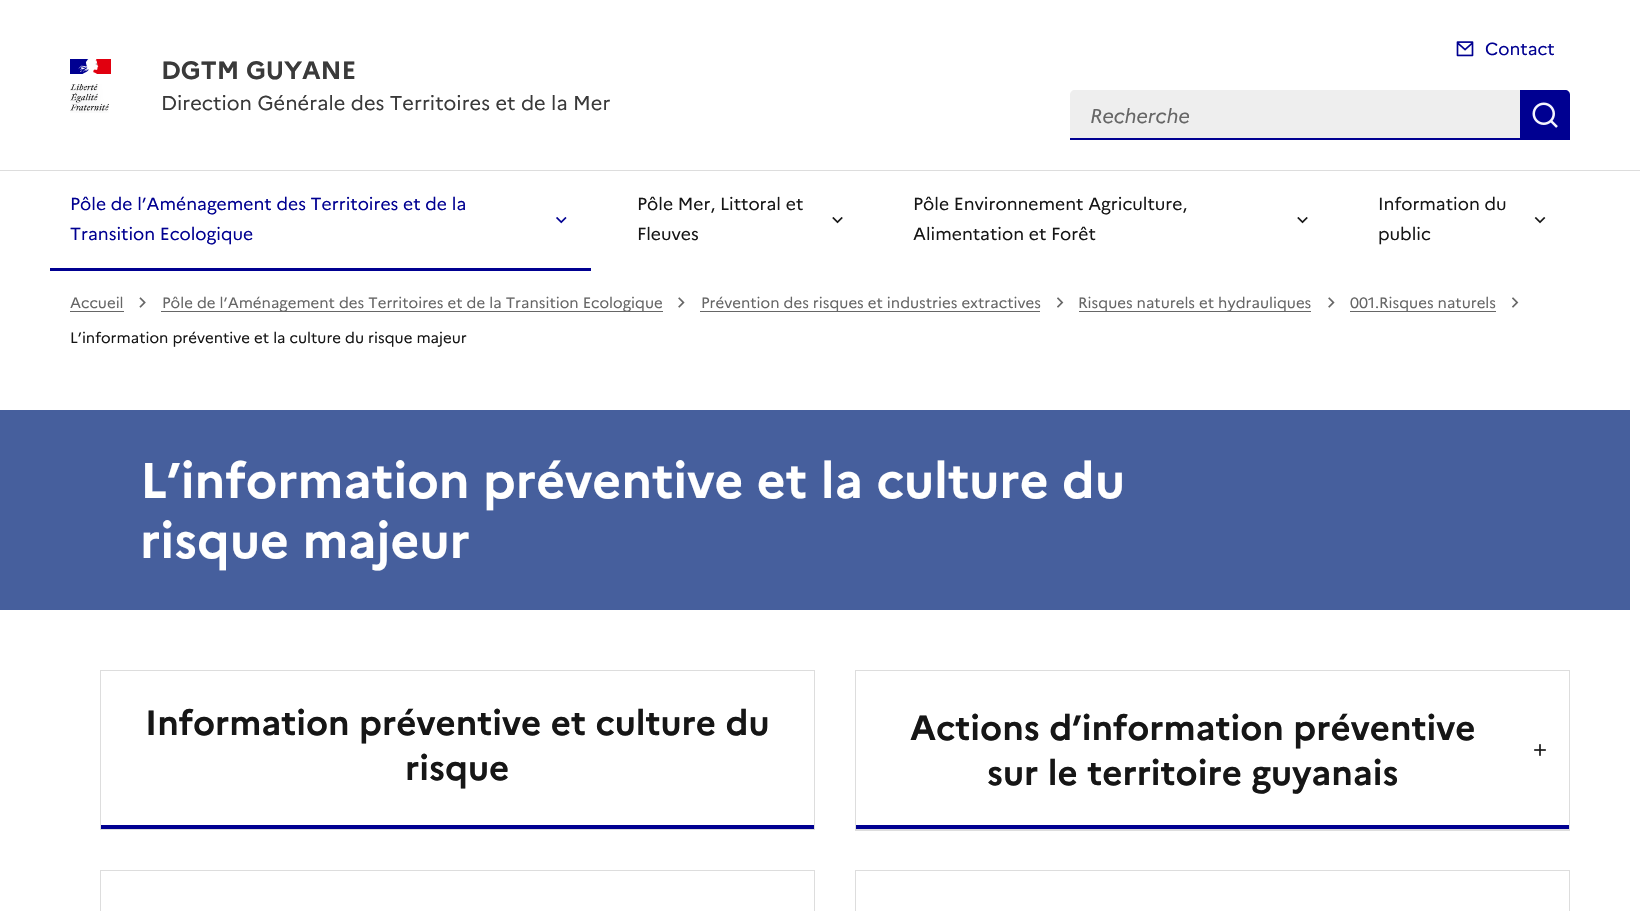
static SkFont makeFont(const char* family, int weight, float size, bool italic = false) {
  SkFontStyle style(weight, SkFontStyle::kNormal_Width,
    italic ? SkFontStyle::kItalic_Slant : SkFontStyle::kUpright_Slant);
  SkFont result(fontMgr->matchFamilyStyle(family, style), size);
  result.setSubpixel(true);
  return result;
}

static void text(SkCanvas* c, const char* s, float x, float y, const SkFont& font, SkColor color) {
  SkPaint ink(SkColor4f::FromColor(color));
  ink.setAntiAlias(true);
  c->drawString(s, x, y, font, ink);
}

static void box(SkCanvas* c, float l, float t, float r, float b, SkColor color) {
  SkPaint ink(SkColor4f::FromColor(color));
  ink.setAntiAlias(true);
  c->drawRect(SkRect::MakeLTRB(l, t, r, b), ink);
}

static void picture(SkCanvas* c, const char* path, float l, float t, float r, float b) {
  auto image = SkImages::DeferredFromEncodedData(SkData::MakeFromFileName(path));
  c->drawImageRect(image, SkRect::MakeLTRB(l, t, r, b), SkSamplingOptions());
}

void draw(SkCanvas* c) {
  SkPaint paint;
  paint.setAntiAlias(true);
  c->clear(0xffffffff);
  box(c, 70, 59, 89, 74, 0xff000091);
  box(c, 93, 59, 111, 74, 0xffe1000f);
  picture(c, "img_01.png", 78, 59, 99, 74);
  picture(c, "img_02.png", 70, 84, 109, 113);
  SkFont face1 = makeFont("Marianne", 700, 25);
  text(c, "DGTM GUYANE", 161, 79, face1, 0xff3a3a3a);
  SkFont face2 = makeFont("Marianne", 400, 20);
  text(c, "Direction Générale des Territoires et de la Mer", 161, 110, face2, 0xff3a3a3a);
  picture(c, "img_03.png", 1456, 41, 1474, 57);
  SkFont face3 = makeFont("Marianne", 400, 17.5f);
  text(c, "Contact", 1485, 55, face3, 0xff000091);
  paint.setColor(0xffeeeeee);
  c->drawPath(SkPathBuilder().moveTo(1075, 90).lineTo(1520, 90).lineTo(1520, 140).lineTo(1070, 140).lineTo(1070, 95).cubicTo(1070, 92, 1072, 90, 1075, 90).close().detach(), paint);
  box(c, 1070, 138, 1520, 140, 0xff000091);
  SkFont face4 = makeFont("Marianne", 400, 20, true);
  text(c, "Recherche", 1090, 123, face4, 0xff666666);
  paint.setColor(0xff000091);
  c->drawPath(SkPathBuilder().moveTo(1520, 90).lineTo(1565, 90).cubicTo(1568, 90, 1570, 92, 1570, 95).lineTo(1570, 140).lineTo(1520, 140).close().detach(), paint);
  picture(c, "img_04.png", 1532, 102, 1558, 128);
  box(c, 0, 170, 1640, 171, 0xffdddddd);
  text(c, "Pôle de l’Aménagement des Territoires et de la", 70, 210, face3, 0xff000091);
  picture(c, "img_05.png", 556, 217, 567, 224);
  text(c, "Transition Ecologique", 70, 240, face3, 0xff000091);
  box(c, 50, 268, 591, 271, 0xff000091);
  text(c, "Pôle Mer, Littoral et", 637, 210, face3, 0xff161616);
  picture(c, "img_06.png", 832, 217, 843, 224);
  text(c, "Fleuves", 637, 240, face3, 0xff161616);
  text(c, "Pôle Environnement Agriculture,", 913, 210, face3, 0xff161616);
  picture(c, "img_06.png", 1297, 217, 1308, 224);
  text(c, "Alimentation et Forêt", 913, 240, face3, 0xff161616);
  text(c, "Information du", 1378, 210, face3, 0xff161616);
  picture(c, "img_07.png", 1534, 217, 1546, 224);
  text(c, "public", 1378, 240, face3, 0xff161616);
  SkFont face5 = makeFont("Marianne", 400, 15);
  text(c, "Accueil", 70, 308, face5, 0xff666666);
  box(c, 70, 311, 124, 312, 0xff666666);
  picture(c, "img_08.png", 139, 297, 146, 308);
  box(c, 161, 311, 663, 312, 0xff666666);
  text(c, "Pôle de l’Aménagement des Territoires et de la Transition Ecologique", 162, 308, face5, 0xff666666);
  picture(c, "img_09.png", 678, 297, 685, 308);
  box(c, 700, 311, 1040, 312, 0xff666666);
  text(c, "Prévention des risques et industries extractives", 701, 308, face5, 0xff666666);
  picture(c, "img_10.png", 1057, 297, 1064, 308);
  box(c, 1079, 311, 1311, 312, 0xff666666);
  text(c, "Risques naturels et hydrauliques", 1078, 308, face5, 0xff666666);
  picture(c, "img_09.png", 1328, 297, 1335, 308);
  box(c, 1350, 311, 1496, 312, 0xff666666);
  text(c, "001.Risques naturels", 1350, 308, face5, 0xff666666);
  picture(c, "img_10.png", 1512, 297, 1519, 308);
  text(c, "L’information préventive et la culture du risque majeur", 70, 343, face5, 0xff161616);
  box(c, 0, 410, 1630, 610, 0xff465f9d);
  SkFont face6 = makeFont("Marianne", 700, 50);
  text(c, "L’information préventive et la culture du", 140, 498, face6, 0xffffffff);
  text(c, "risque majeur", 140, 558, face6, 0xffffffff);
  box(c, 100, 825, 815, 829, 0xff000091);
  paint.setStyle(SkPaint::kStroke_Style);
  paint.setStrokeWidth(1);
  paint.setColor(0xffdddddd);
  c->drawRect(SkRect::MakeLTRB(100.5f, 670.5f, 814.5f, 829.5f), paint);
  SkFont face7 = makeFont("Marianne", 700, 35);
  text(c, "Information préventive et culture du", 145, 735, face7, 0xff161616);
  text(c, "risque", 405, 780, face7, 0xff161616);
  box(c, 855, 825, 1570, 829, 0xff000091);
  c->drawRect(SkRect::MakeLTRB(855.5f, 670.5f, 1569.5f, 829.5f), paint);
  text(c, "Actions d’information préventive", 910, 740, face7, 0xff161616);
  text(c, "sur le territoire guyanais", 987, 785, face7, 0xff161616);
  picture(c, "img_11.png", 1534, 744, 1546, 756);
  box(c, 855, 830, 1570, 831, 0xffdddddd);
  c->drawRect(SkRect::MakeLTRB(100.5f, 870.5f, 814.5f, 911.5f), paint);
  c->drawRect(SkRect::MakeLTRB(855.5f, 870.5f, 1569.5f, 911.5f), paint);
}
